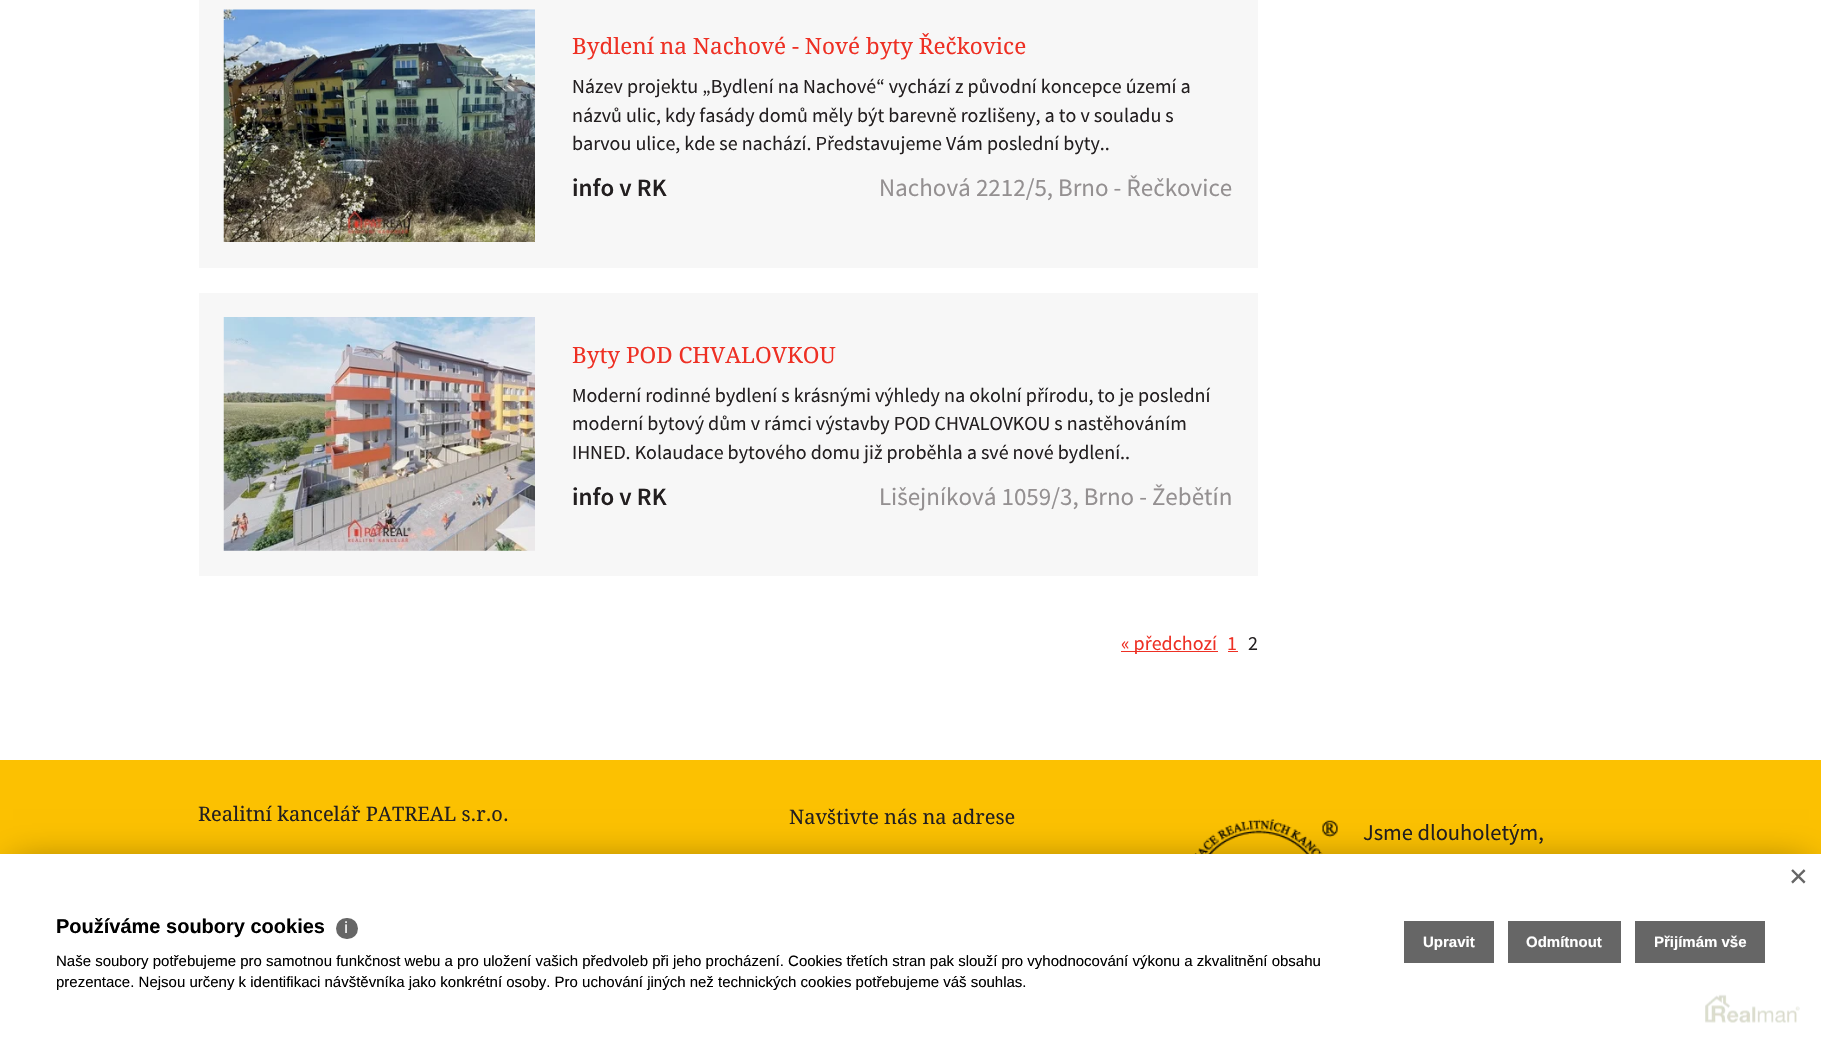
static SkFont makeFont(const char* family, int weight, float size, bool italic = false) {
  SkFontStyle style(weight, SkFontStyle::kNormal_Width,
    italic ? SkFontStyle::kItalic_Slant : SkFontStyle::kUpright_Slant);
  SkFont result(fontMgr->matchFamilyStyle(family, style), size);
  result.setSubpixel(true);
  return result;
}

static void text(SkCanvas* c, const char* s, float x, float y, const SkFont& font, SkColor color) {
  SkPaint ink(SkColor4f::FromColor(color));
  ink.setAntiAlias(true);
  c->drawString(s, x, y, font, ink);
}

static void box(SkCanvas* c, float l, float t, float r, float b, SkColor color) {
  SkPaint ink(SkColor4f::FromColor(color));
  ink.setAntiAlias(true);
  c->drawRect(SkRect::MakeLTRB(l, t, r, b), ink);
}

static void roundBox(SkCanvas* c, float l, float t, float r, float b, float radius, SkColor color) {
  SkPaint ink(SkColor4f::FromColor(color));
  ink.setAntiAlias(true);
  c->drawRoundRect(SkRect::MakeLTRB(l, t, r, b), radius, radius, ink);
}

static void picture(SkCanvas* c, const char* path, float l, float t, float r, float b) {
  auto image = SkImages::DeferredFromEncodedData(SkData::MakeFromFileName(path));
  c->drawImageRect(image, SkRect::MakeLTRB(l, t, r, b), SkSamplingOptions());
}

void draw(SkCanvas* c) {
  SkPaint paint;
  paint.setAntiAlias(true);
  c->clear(0xffffffff);
  box(c, 199, 0, 1258, 268, 0xfff7f7f7);
  picture(c, "img_01.png", 223, 9, 535, 242);
  SkFont face1 = makeFont("Droid Serif", 400, 22.5f);
  text(c, "Bydlení na Nachové - Nové byty Řečkovice", 572, 54, face1, 0xffee3024);
  SkFont face2 = makeFont("Source Sans Pro", 400, 20);
  text(c, "Název projektu „Bydlení na Nachové“ vychází z původní koncepce území a", 572, 93, face2, 0xff231f20);
  text(c, "názvů ulic, kdy fasády domů měly být barevně rozlišeny, a to v souladu s", 572, 122, face2, 0xff231f20);
  text(c, "barvou ulice, kde se nachází. Představujeme Vám poslední byty..", 572, 150, face2, 0xff231f20);
  SkFont face3 = makeFont("Source Sans Pro", 600, 25);
  text(c, "info v RK", 572, 196, face3, 0xff231f20);
  SkFont face4 = makeFont("Source Sans Pro", 400, 25);
  text(c, "Nachová 2212/5, Brno - Řečkovice", 879, 196, face4, 0xff949091);
  box(c, 199, 293, 1258, 576, 0xfff7f7f7);
  picture(c, "img_02.png", 223, 317, 535, 551);
  text(c, "Byty POD CHVALOVKOU", 572, 363, face1, 0xffee3024);
  text(c, "Moderní rodinné bydlení s krásnými výhledy na okolní přírodu, to je poslední", 572, 402, face2, 0xff231f20);
  text(c, "moderní bytový dům v rámci výstavby POD CHVALOVKOU s nastěhováním", 572, 430, face2, 0xff231f20);
  text(c, "IHNED. Kolaudace bytového domu již proběhla a své nové bydlení..", 572, 459, face2, 0xff231f20);
  text(c, "info v RK", 572, 505, face3, 0xff231f20);
  text(c, "Lišejníková 1059/3, Brno - Žebětín", 879, 505, face4, 0xff949091);
  box(c, 1121, 651, 1218, 652, 0xffee3024);
  text(c, "« předchozí", 1121, 650, face2, 0xffee3024);
  text(c, "1", 1227, 650, face2, 0xffee3024);
  box(c, 1228, 651, 1238, 652, 0xffee3024);
  text(c, "2", 1248, 650, face2, 0xff231f20);
  box(c, 0, 760, 1821, 854, 0xfffcc101);
  SkFont face5 = makeFont("Droid Serif", 400, 20);
  text(c, "Realitní kancelář PATREAL s.r.o.", 198, 821, face5, 0xff231f20);
  text(c, "Navštivte nás na adrese", 789, 824, face5, 0xff231f20);
  picture(c, "img_03.png", 1194, 819, 1338, 854);
  SkFont face6 = makeFont("Source Sans Pro", 400, 22.5f);
  text(c, "Jsme dlouholetým,", 1363, 840, face6, 0xff231f20);
  paint.setColor(0x80000000);
  paint.setMaskFilter(SkMaskFilter::MakeBlur(kNormal_SkBlurStyle, 19));
  c->drawRect(SkRect::MakeLTRB(13, 866, 1809, 1031), paint);
  paint.setMaskFilter(nullptr);
  box(c, 0, 854, 1821, 1043, 0xffffffff);
  picture(c, "img_04.png", 1705, 994, 1800, 1023);
  SkFont face7 = makeFont("Liberation Sans", 400, 32);
  text(c, "×", 1789, 887, face7, 0xff666666);
  SkFont face8 = makeFont("Liberation Sans", 700, 20);
  text(c, "Používáme soubory cookies", 56, 933, face8, 0xff000000);
  roundBox(c, 336, 918, 358, 939, 10.5f, 0xff666666);
  SkFont face9 = makeFont("Noto Sans", 400, 16);
  text(c, "ℹ", 344, 933, face9, 0xffffffff);
  SkFont face10 = makeFont("Liberation Sans", 400, 15);
  text(c, "Naše soubory potřebujeme pro samotnou funkčnost webu a pro uložení vašich předvoleb při jeho procházení. Cookies třetích stran pak slouží pro vyhodnocování výkonu a zkvalitnění obsahu", 56, 966, face10, 0xff000000);
  text(c, "prezentace. Nejsou určeny k identifikaci návštěvníka jako konkrétní osoby. Pro uchování jiných než technických cookies potřebujeme váš souhlas.", 56, 987, face10, 0xff000000);
  box(c, 1404, 921, 1494, 963, 0xff666666);
  SkFont face11 = makeFont("Liberation Sans", 700, 15);
  text(c, "Upravit", 1423, 947, face11, 0xffffffff);
  box(c, 1508, 921, 1621, 963, 0xff666666);
  text(c, "Odmítnout", 1526, 947, face11, 0xffffffff);
  box(c, 1635, 921, 1765, 963, 0xff666666);
  text(c, "Přijímám vše", 1654, 947, face11, 0xffffffff);
}
